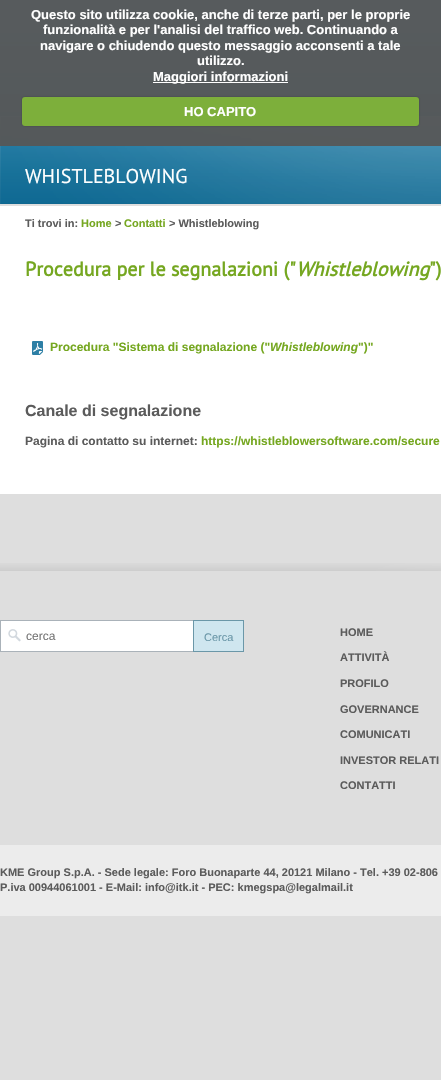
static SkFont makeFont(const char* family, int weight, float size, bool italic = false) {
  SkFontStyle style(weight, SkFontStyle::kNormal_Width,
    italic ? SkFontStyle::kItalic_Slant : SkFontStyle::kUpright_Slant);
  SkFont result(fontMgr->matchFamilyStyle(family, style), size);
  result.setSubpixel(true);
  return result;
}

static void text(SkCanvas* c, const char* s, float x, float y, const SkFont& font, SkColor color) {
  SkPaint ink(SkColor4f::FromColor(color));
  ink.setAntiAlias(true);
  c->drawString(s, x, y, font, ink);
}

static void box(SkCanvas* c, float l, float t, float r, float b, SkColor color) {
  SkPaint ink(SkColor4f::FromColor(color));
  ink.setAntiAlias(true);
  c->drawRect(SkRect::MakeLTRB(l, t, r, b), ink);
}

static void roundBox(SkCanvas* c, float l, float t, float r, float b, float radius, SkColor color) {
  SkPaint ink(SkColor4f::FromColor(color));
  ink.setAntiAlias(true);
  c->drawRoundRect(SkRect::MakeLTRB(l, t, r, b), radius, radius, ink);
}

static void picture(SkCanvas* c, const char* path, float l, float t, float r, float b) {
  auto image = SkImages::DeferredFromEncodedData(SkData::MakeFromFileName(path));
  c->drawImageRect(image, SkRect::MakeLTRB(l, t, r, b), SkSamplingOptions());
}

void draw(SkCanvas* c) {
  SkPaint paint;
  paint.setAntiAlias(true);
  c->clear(0xffdedede);
  picture(c, "img_01.png", 0, 0, 441, 116);
  picture(c, "img_02.png", 0, 116, 441, 204);
  box(c, 0, 0, 441, 146, 0xf2565656);
  SkFont face1 = makeFont("Liberation Sans", 700, 13);
  text(c, "Questo sito utilizza cookie, anche di terze parti, per le proprie", 31, 19, face1, 0xffffffff);
  text(c, "funzionalità e per l'analisi del traffico web. Continuando a", 43, 34, face1, 0xffffffff);
  text(c, "navigare o chiudendo questo messaggio acconsenti a tale", 40, 50, face1, 0xffffffff);
  text(c, "utilizzo.", 197, 65, face1, 0xffffffff);
  box(c, 153, 82, 288, 83, 0xffffffff);
  text(c, "Maggiori informazioni", 153, 81, face1, 0xffffffff);
  paint.setColor(0x40000000);
  paint.setMaskFilter(SkMaskFilter::MakeBlur(kNormal_SkBlurStyle, 1));
  c->drawRoundRect(SkRect::MakeLTRB(22, 97, 419, 126), 3, 3, paint);
  paint.setMaskFilter(nullptr);
  roundBox(c, 22, 97, 419, 126, 3, 0xff7daf3b);
  text(c, "HO CAPITO", 184, 116, face1, 0xffffffff);
  SkFont face2 = makeFont("PT Sans", 400, 20);
  text(c, "WHISTLEBLOWING", 25, 183, face2, 0xffffffff);
  box(c, 0, 206, 441, 494, 0xffffffff);
  SkFont face3 = makeFont("Liberation Sans", 700, 11);
  text(c, "Ti trovi in:", 25, 227, face3, 0xff5b5b5b);
  text(c, "Home", 81, 227, face3, 0xff75a720);
  text(c, ">", 115, 227, face3, 0xff5b5b5b);
  text(c, "Contatti", 124, 227, face3, 0xff75a720);
  text(c, "> Whistleblowing", 169, 227, face3, 0xff5b5b5b);
  SkFont face4 = makeFont("PT Sans", 700, 20);
  text(c, "Procedura per le segnalazioni (\"", 25, 276, face4, 0xff75a720);
  SkFont face5 = makeFont("PT Sans", 700, 20, true);
  text(c, "Whistleblowing", 296, 276, face5, 0xff75a720);
  text(c, "\")", 429, 276, face4, 0xff75a720);
  picture(c, "img_03.png", 32, 341, 43, 355);
  SkFont face6 = makeFont("Liberation Sans", 700, 12);
  text(c, "Procedura \"Sistema di segnalazione (\"", 50, 351, face6, 0xff75a720);
  SkFont face7 = makeFont("Liberation Sans", 700, 12, true);
  text(c, "Whistleblowing", 270, 351, face7, 0xff75a720);
  text(c, "\")\"", 358, 351, face6, 0xff75a720);
  SkFont face8 = makeFont("Liberation Sans", 700, 16);
  text(c, "Canale di segnalazione", 25, 416, face8, 0xff5b5b5b);
  text(c, "Pagina di contatto su internet:", 25, 445, face6, 0xff5b5b5b);
  text(c, "https://whistleblowersoftware.com/secure", 201, 445, face6, 0xff75a720);
  picture(c, "img_04.png", 0, 563, 441, 571);
  box(c, 1, 621, 193, 651, 0xffffffff);
  picture(c, "img_05.png", 8, 629, 21, 642);
  box(c, 0, 620, 193, 621, 0xffaab2b9);
  box(c, 0, 651, 193, 652, 0xffaab2b9);
  box(c, 0, 620, 1, 652, 0xffaab2b9);
  SkFont face9 = makeFont("Liberation Sans", 400, 12);
  text(c, "cerca", 26, 640, face9, 0xff757575);
  paint.setColor(0xffcfe6ef);
  c->drawRect(SkRect::MakeLTRB(193.5f, 620.5f, 243.5f, 651.5f), paint);
  paint.setStyle(SkPaint::kStroke_Style);
  paint.setStrokeWidth(1);
  paint.setColor(0xff6b97a8);
  c->drawRect(SkRect::MakeLTRB(193.5f, 620.5f, 243.5f, 651.5f), paint);
  SkFont face10 = makeFont("Liberation Sans", 400, 11);
  text(c, "Cerca", 204, 641, face10, 0xff6b97a8);
  text(c, "HOME", 340, 636, face3, 0xff5b5b5b);
  text(c, "ATTIVITÀ", 340, 661, face3, 0xff5b5b5b);
  text(c, "PROFILO", 340, 687, face3, 0xff5b5b5b);
  text(c, "GOVERNANCE", 340, 713, face3, 0xff5b5b5b);
  text(c, "COMUNICATI", 340, 738, face3, 0xff5b5b5b);
  text(c, "INVESTOR RELATI", 340, 764, face3, 0xff5b5b5b);
  text(c, "CONTATTI", 340, 789, face3, 0xff5b5b5b);
  box(c, 0, 845, 441, 916, 0xffececec);
  text(c, "KME Group S.p.A. - Sede legale: Foro Buonaparte 44, 20121 Milano - Tel. +39 02-806", 0, 876, face3, 0xff5b5b5b);
  text(c, "P.iva 00944061001 - E-Mail: info@itk.it - PEC: kmegspa@legalmail.it", 0, 891, face3, 0xff5b5b5b);
}
